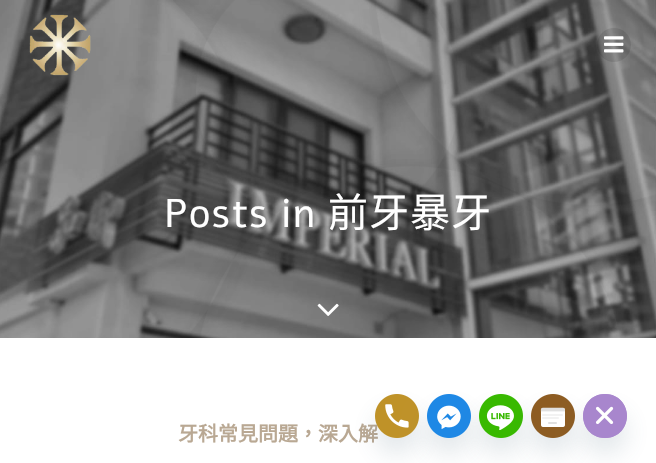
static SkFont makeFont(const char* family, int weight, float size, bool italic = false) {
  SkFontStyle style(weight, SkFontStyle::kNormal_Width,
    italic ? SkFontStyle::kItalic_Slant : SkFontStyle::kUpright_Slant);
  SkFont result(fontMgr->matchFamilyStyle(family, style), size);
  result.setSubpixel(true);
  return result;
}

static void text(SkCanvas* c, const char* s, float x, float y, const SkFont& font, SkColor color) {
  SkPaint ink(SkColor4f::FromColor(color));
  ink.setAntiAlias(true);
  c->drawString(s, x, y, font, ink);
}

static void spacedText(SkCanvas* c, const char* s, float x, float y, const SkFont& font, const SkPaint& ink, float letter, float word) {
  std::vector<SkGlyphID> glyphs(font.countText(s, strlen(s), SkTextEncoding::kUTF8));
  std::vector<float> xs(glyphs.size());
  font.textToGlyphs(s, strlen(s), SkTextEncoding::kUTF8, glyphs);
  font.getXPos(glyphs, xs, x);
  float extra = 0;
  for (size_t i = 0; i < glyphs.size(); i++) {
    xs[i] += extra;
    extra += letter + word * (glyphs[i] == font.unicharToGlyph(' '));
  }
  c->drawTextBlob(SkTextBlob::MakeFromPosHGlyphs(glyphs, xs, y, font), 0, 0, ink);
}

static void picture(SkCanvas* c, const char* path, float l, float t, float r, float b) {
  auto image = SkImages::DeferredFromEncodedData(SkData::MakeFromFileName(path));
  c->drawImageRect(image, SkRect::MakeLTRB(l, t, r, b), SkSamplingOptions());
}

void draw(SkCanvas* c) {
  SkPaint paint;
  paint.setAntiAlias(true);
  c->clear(0xffffffff);
  picture(c, "img_03.png", 0, 0, 656, 338);
  picture(c, "img_01.png", 29, 14, 91, 76);
  picture(c, "img_04.png", 173, 0, 656, 338);
  paint.setColor(0x1a000000);
  c->drawCircle(614, 45, 17, paint);
  picture(c, "img_02.png", 604, 36, 624, 53);
  SkFont face1 = makeFont("Alef", 400, 40);
  paint.setColor(0xffffffff);
  spacedText(c, "Posts in", 164, 227, face1, paint, 1, 0);
  SkFont face2 = makeFont("Noto Sans CJK TC", 400, 40);
  spacedText(c, "前牙暴牙", 328, 227, face2, paint, 1, 0);
  picture(c, "img_05.png", 317, 303, 339, 316);
  SkFont face3 = makeFont("Noto Sans CJK TC", 700, 20);
  text(c, "牙科常見問題，深入解", 178, 441, face3, 0xffb9a893);
  paint.setColor(0x2949687e);
  paint.setMaskFilter(SkMaskFilter::MakeBlur(kNormal_SkBlurStyle, 12));
  c->drawRoundRect(SkRect::MakeLTRB(375, 410, 419, 454), 22, 22, paint);
  paint.setMaskFilter(nullptr);
  picture(c, "img_06.png", 375, 394, 419, 438);
  paint.setMaskFilter(SkMaskFilter::MakeBlur(kNormal_SkBlurStyle, 12));
  c->drawRoundRect(SkRect::MakeLTRB(427, 410, 471, 454), 22, 22, paint);
  paint.setMaskFilter(nullptr);
  picture(c, "img_07.png", 427, 394, 471, 438);
  paint.setMaskFilter(SkMaskFilter::MakeBlur(kNormal_SkBlurStyle, 12));
  c->drawRoundRect(SkRect::MakeLTRB(479, 410, 523, 454), 22, 22, paint);
  paint.setMaskFilter(nullptr);
  picture(c, "img_08.png", 479, 394, 523, 438);
  paint.setMaskFilter(SkMaskFilter::MakeBlur(kNormal_SkBlurStyle, 12));
  c->drawRoundRect(SkRect::MakeLTRB(531, 410, 575, 454), 22, 22, paint);
  paint.setMaskFilter(nullptr);
  picture(c, "img_09.png", 531, 394, 575, 438);
  paint.setMaskFilter(SkMaskFilter::MakeBlur(kNormal_SkBlurStyle, 12));
  c->drawRoundRect(SkRect::MakeLTRB(583, 410, 627, 454), 22, 22, paint);
  paint.setMaskFilter(nullptr);
  paint.setColor(0xffa886cd);
  c->drawPath(SkPathBuilder().moveTo(605, 438).cubicTo(576, 438, 576, 394, 605, 394).cubicTo(634, 394, 634, 438, 605, 438).close().detach(), paint);
  picture(c, "img_10.png", 583, 394, 627, 438);
}
